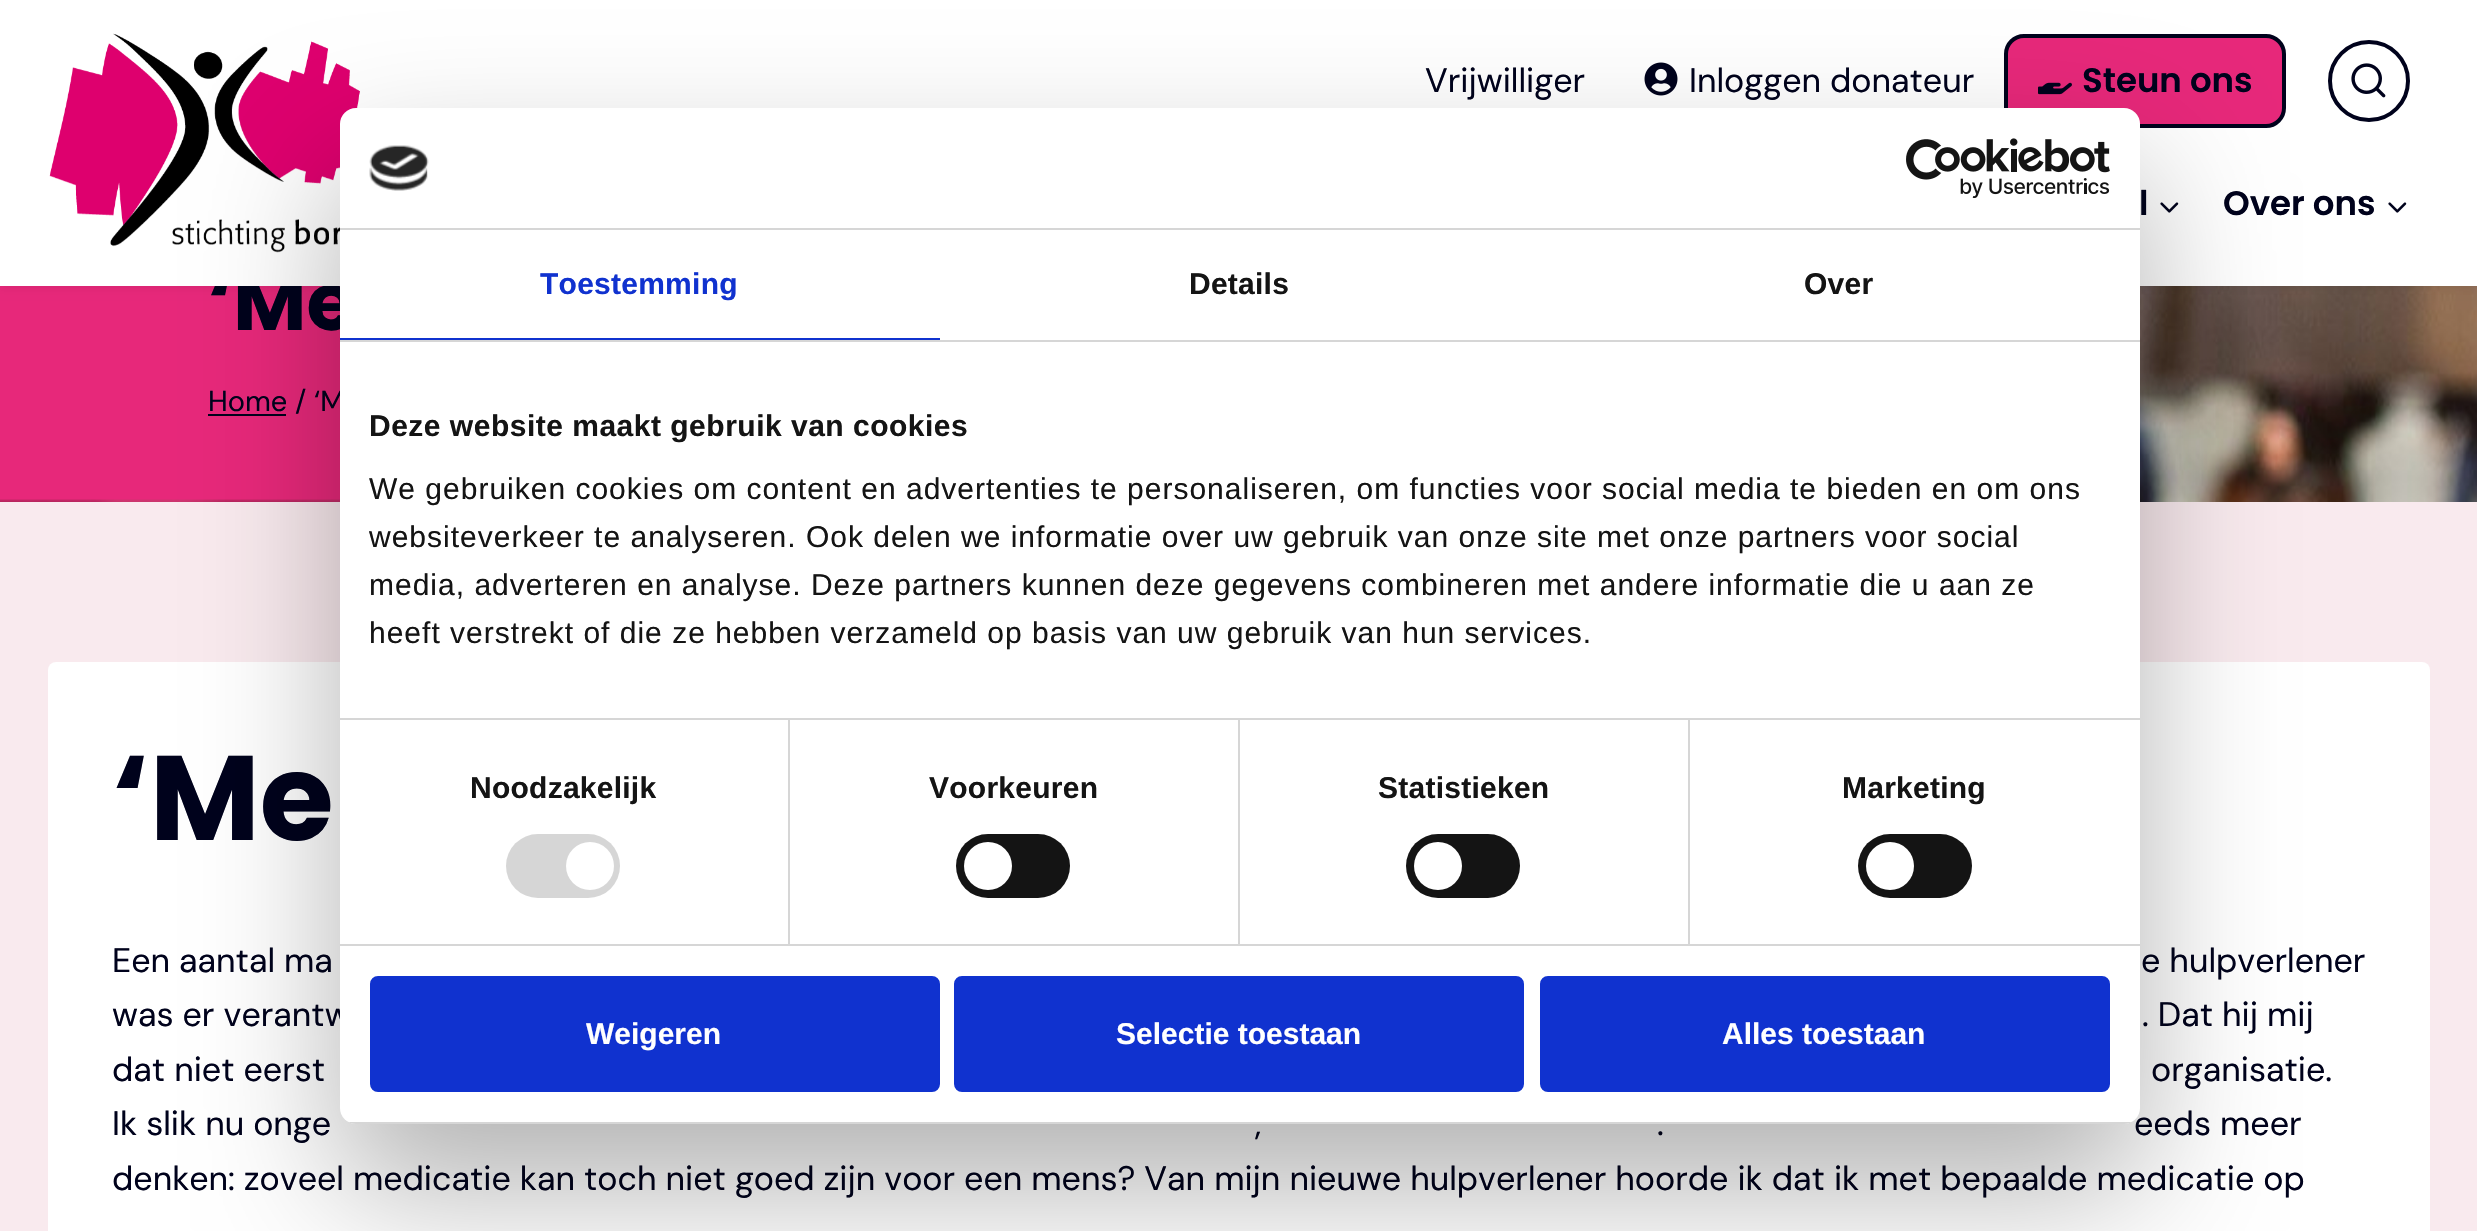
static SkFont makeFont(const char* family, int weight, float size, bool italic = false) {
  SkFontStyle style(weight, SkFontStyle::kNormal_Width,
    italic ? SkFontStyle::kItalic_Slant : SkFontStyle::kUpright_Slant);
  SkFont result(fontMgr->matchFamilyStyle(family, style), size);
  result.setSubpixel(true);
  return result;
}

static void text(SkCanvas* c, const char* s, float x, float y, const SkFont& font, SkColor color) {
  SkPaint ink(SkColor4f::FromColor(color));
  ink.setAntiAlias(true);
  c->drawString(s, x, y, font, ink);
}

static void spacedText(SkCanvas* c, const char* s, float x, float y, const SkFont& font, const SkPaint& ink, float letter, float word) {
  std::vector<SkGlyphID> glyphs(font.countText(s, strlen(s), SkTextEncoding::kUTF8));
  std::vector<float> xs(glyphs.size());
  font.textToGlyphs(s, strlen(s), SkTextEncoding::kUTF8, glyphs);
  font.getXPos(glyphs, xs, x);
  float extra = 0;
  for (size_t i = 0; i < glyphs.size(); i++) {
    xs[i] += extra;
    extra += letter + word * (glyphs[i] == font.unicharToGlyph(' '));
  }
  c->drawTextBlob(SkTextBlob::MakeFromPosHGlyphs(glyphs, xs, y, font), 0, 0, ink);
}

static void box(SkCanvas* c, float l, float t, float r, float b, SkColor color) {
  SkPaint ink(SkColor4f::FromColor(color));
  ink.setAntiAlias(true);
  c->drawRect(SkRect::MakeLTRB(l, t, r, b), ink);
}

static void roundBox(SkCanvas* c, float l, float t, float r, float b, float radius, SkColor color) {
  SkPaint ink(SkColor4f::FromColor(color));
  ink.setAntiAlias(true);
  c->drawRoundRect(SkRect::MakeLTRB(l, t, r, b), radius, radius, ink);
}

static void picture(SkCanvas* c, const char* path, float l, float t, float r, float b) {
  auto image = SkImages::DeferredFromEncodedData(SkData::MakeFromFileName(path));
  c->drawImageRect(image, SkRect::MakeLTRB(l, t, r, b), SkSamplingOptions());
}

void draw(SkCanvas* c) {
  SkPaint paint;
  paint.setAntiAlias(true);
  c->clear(0xfff9eaee);
  picture(c, "img_06.png", 0, 286, 2477, 502);
  picture(c, "img_07.png", 0, 286, 340, 502);
  paint.setColor(0x1a000000);
  paint.setMaskFilter(SkMaskFilter::MakeBlur(kNormal_SkBlurStyle, 5));
  c->drawRect(SkRect::MakeLTRB(0, 0, 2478, 286), paint);
  paint.setMaskFilter(nullptr);
  SkFont face1 = makeFont("Poppins", 700, 80);
  text(c, "‘Me", 208, 330, face1, 0xff00021c);
  box(c, 0, 0, 2477, 286, 0xffffffff);
  picture(c, "img_01.png", 49, 33, 360, 253);
  SkFont face2 = makeFont("DM Sans", 400, 34);
  text(c, "Vrijwilliger", 1425, 92, face2, 0xff00021c);
  picture(c, "img_02.png", 1644, 62, 1678, 96);
  text(c, "Inloggen donateur", 1689, 92, face2, 0xff00021c);
  paint.setColor(0xffe7287a);
  c->drawRoundRect(SkRect::MakeLTRB(2006, 36, 2284, 126), 18, 18, paint);
  paint.setStyle(SkPaint::kStroke_Style);
  paint.setStrokeWidth(4);
  paint.setColor(0xff00021c);
  c->drawRoundRect(SkRect::MakeLTRB(2006, 36, 2284, 126), 18, 18, paint);
  picture(c, "img_03.png", 2038, 82, 2072, 95);
  SkFont face3 = makeFont("Poppins", 600, 34);
  text(c, "Steun ons", 2082, 92, face3, 0xff00021c);
  c->drawCircle(2369, 81, 39, paint);
  picture(c, "img_04.png", 2351, 63, 2386, 98);
  text(c, "l", 2139, 215, face3, 0xff00021c);
  picture(c, "img_05.png", 2160, 202, 2179, 213);
  text(c, "Over ons", 2223, 215, face3, 0xff00021c);
  picture(c, "img_05.png", 2388, 202, 2407, 213);
  SkFont face4 = makeFont("DM Sans", 400, 29);
  text(c, "Home / ‘M", 208, 411, face4, 0xff00021c);
  box(c, 208, 414, 286, 416, 0xff00021c);
  roundBox(c, 48, 662, 2430, 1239, 8, 0xffffffff);
  SkFont face5 = makeFont("Poppins", 700, 120);
  text(c, "‘Me", 112, 840, face5, 0xff00021c);
  text(c, "Een aantal ma", 112, 972, face2, 0xff00021c);
  text(c, "e hulpverlener", 2141, 972, face2, 0xff00021c);
  text(c, "was er verantw", 112, 1026, face2, 0xff00021c);
  text(c, ". Dat hij mij", 2142, 1026, face2, 0xff00021c);
  text(c, "dat niet eerst", 112, 1081, face2, 0xff00021c);
  text(c, "organisatie.", 2151, 1081, face2, 0xff00021c);
  text(c, "Ik slik nu onge", 112, 1135, face2, 0xff00021c);
  text(c, ",", 1255, 1135, face2, 0xff00021c);
  text(c, ".", 1657, 1135, face2, 0xff00021c);
  text(c, "eeds meer", 2134, 1135, face2, 0xff00021c);
  text(c, "denken: zoveel medicatie kan toch niet goed zijn voor een mens? Van mijn nieuwe hulpverlener hoorde ik dat ik met bepaalde medicatie op", 112, 1190, face2, 0xff00021c);
  paint.setStyle(SkPaint::kFill_Style);
  paint.setColor(0x4d000000);
  paint.setMaskFilter(SkMaskFilter::MakeBlur(kNormal_SkBlurStyle, 68));
  c->drawRoundRect(SkRect::MakeLTRB(340, 172, 2140, 1188), 16, 16, paint);
  paint.setMaskFilter(nullptr);
  roundBox(c, 340, 108, 2140, 1124, 16, 0xffffffff);
  box(c, 340, 228, 2140, 230, 0xffd6d6d6);
  picture(c, "img_08.png", 369, 145, 429, 191);
  picture(c, "img_09.png", 1906, 138, 2110, 198);
  box(c, 340, 340, 2140, 342, 0xffd6d6d6);
  box(c, 340, 338, 940, 340, 0xff1032cf);
  SkFont face6 = makeFont("Liberation Sans", 700, 30);
  paint.setColor(0xff1032cf);
  spacedText(c, "Toestemming", 540, 294, face6, paint, 0.25f, 0);
  paint.setColor(0xff141414);
  spacedText(c, "Details", 1189, 294, face6, paint, 0.25f, 0);
  spacedText(c, "Over", 1804, 294, face6, paint, 0.25f, 0);
  box(c, 340, 718, 2140, 720, 0xffd6d6d6);
  spacedText(c, "Deze website maakt gebruik van cookies", 369, 436, face6, paint, 0.5f, 0);
  SkFont face7 = makeFont("Liberation Sans", 400, 30);
  spacedText(c, "We gebruiken cookies om content en advertenties te personaliseren, om functies voor social media te bieden en om ons", 369, 499, face7, paint, 1, 0);
  spacedText(c, "websiteverkeer te analyseren. Ook delen we informatie over uw gebruik van onze site met onze partners voor social", 369, 547, face7, paint, 1, 0);
  spacedText(c, "media, adverteren en analyse. Deze partners kunnen deze gegevens combineren met andere informatie die u aan ze", 369, 595, face7, paint, 1, 0);
  spacedText(c, "heeft verstrekt of die ze hebben verzameld op basis van uw gebruik van hun services.", 369, 643, face7, paint, 1, 0);
  box(c, 340, 944, 2140, 946, 0xffd6d6d6);
  box(c, 788, 720, 790, 944, 0xffd6d6d6);
  spacedText(c, "Noodzakelijk", 470, 798, face6, paint, 0.25f, 0);
  roundBox(c, 506, 834, 620, 898, 32, 0xffd6d6d6);
  paint.setColor(0xffffffff);
  c->drawCircle(590, 866, 24, paint);
  box(c, 1238, 720, 1240, 944, 0xffd6d6d6);
  paint.setColor(0xff141414);
  spacedText(c, "Voorkeuren", 929, 798, face6, paint, 0.25f, 0);
  roundBox(c, 956, 834, 1070, 898, 32, 0xff141414);
  paint.setColor(0xffffffff);
  c->drawCircle(988, 866, 24, paint);
  box(c, 1688, 720, 1690, 944, 0xffd6d6d6);
  paint.setColor(0xff141414);
  spacedText(c, "Statistieken", 1378, 798, face6, paint, 0.25f, 0);
  roundBox(c, 1406, 834, 1520, 898, 32, 0xff141414);
  paint.setColor(0xffffffff);
  c->drawCircle(1438, 866, 24, paint);
  paint.setColor(0xff141414);
  spacedText(c, "Marketing", 1842, 798, face6, paint, 0.25f, 0);
  roundBox(c, 1858, 834, 1972, 898, 32, 0xff141414);
  paint.setColor(0xffffffff);
  c->drawCircle(1890, 866, 24, paint);
  c->save();
  c->clipPath(SkPathBuilder().moveTo(356, 108).lineTo(2124, 108).cubicTo(2133, 108, 2140, 115, 2140, 124).lineTo(2140, 1108).cubicTo(2140, 1117, 2133, 1124, 2124, 1124).lineTo(356, 1124).cubicTo(347, 1124, 340, 1117, 340, 1108).lineTo(340, 124).cubicTo(340, 115, 347, 108, 356, 108).close().detach(), true);
  box(c, 340, 1122, 2140, 1124, 0xffd6d6d6);
  c->restore();
  paint.setColor(0xff1032cf);
  c->drawRoundRect(SkRect::MakeLTRB(372, 978, 938, 1090), 6, 6, paint);
  paint.setStyle(SkPaint::kStroke_Style);
  c->drawRoundRect(SkRect::MakeLTRB(372, 978, 938, 1090), 6, 6, paint);
  text(c, "Weigeren", 586, 1044, face6, 0xffffffff);
  paint.setStyle(SkPaint::kFill_Style);
  c->drawRoundRect(SkRect::MakeLTRB(956, 978, 1522, 1090), 6, 6, paint);
  paint.setStyle(SkPaint::kStroke_Style);
  c->drawRoundRect(SkRect::MakeLTRB(956, 978, 1522, 1090), 6, 6, paint);
  text(c, "Selectie toestaan", 1116, 1044, face6, 0xffffffff);
  paint.setStyle(SkPaint::kFill_Style);
  c->drawRoundRect(SkRect::MakeLTRB(1542, 978, 2108, 1090), 6, 6, paint);
  paint.setStyle(SkPaint::kStroke_Style);
  c->drawRoundRect(SkRect::MakeLTRB(1542, 978, 2108, 1090), 6, 6, paint);
  text(c, "Alles toestaan", 1722, 1044, face6, 0xffffffff);
}
